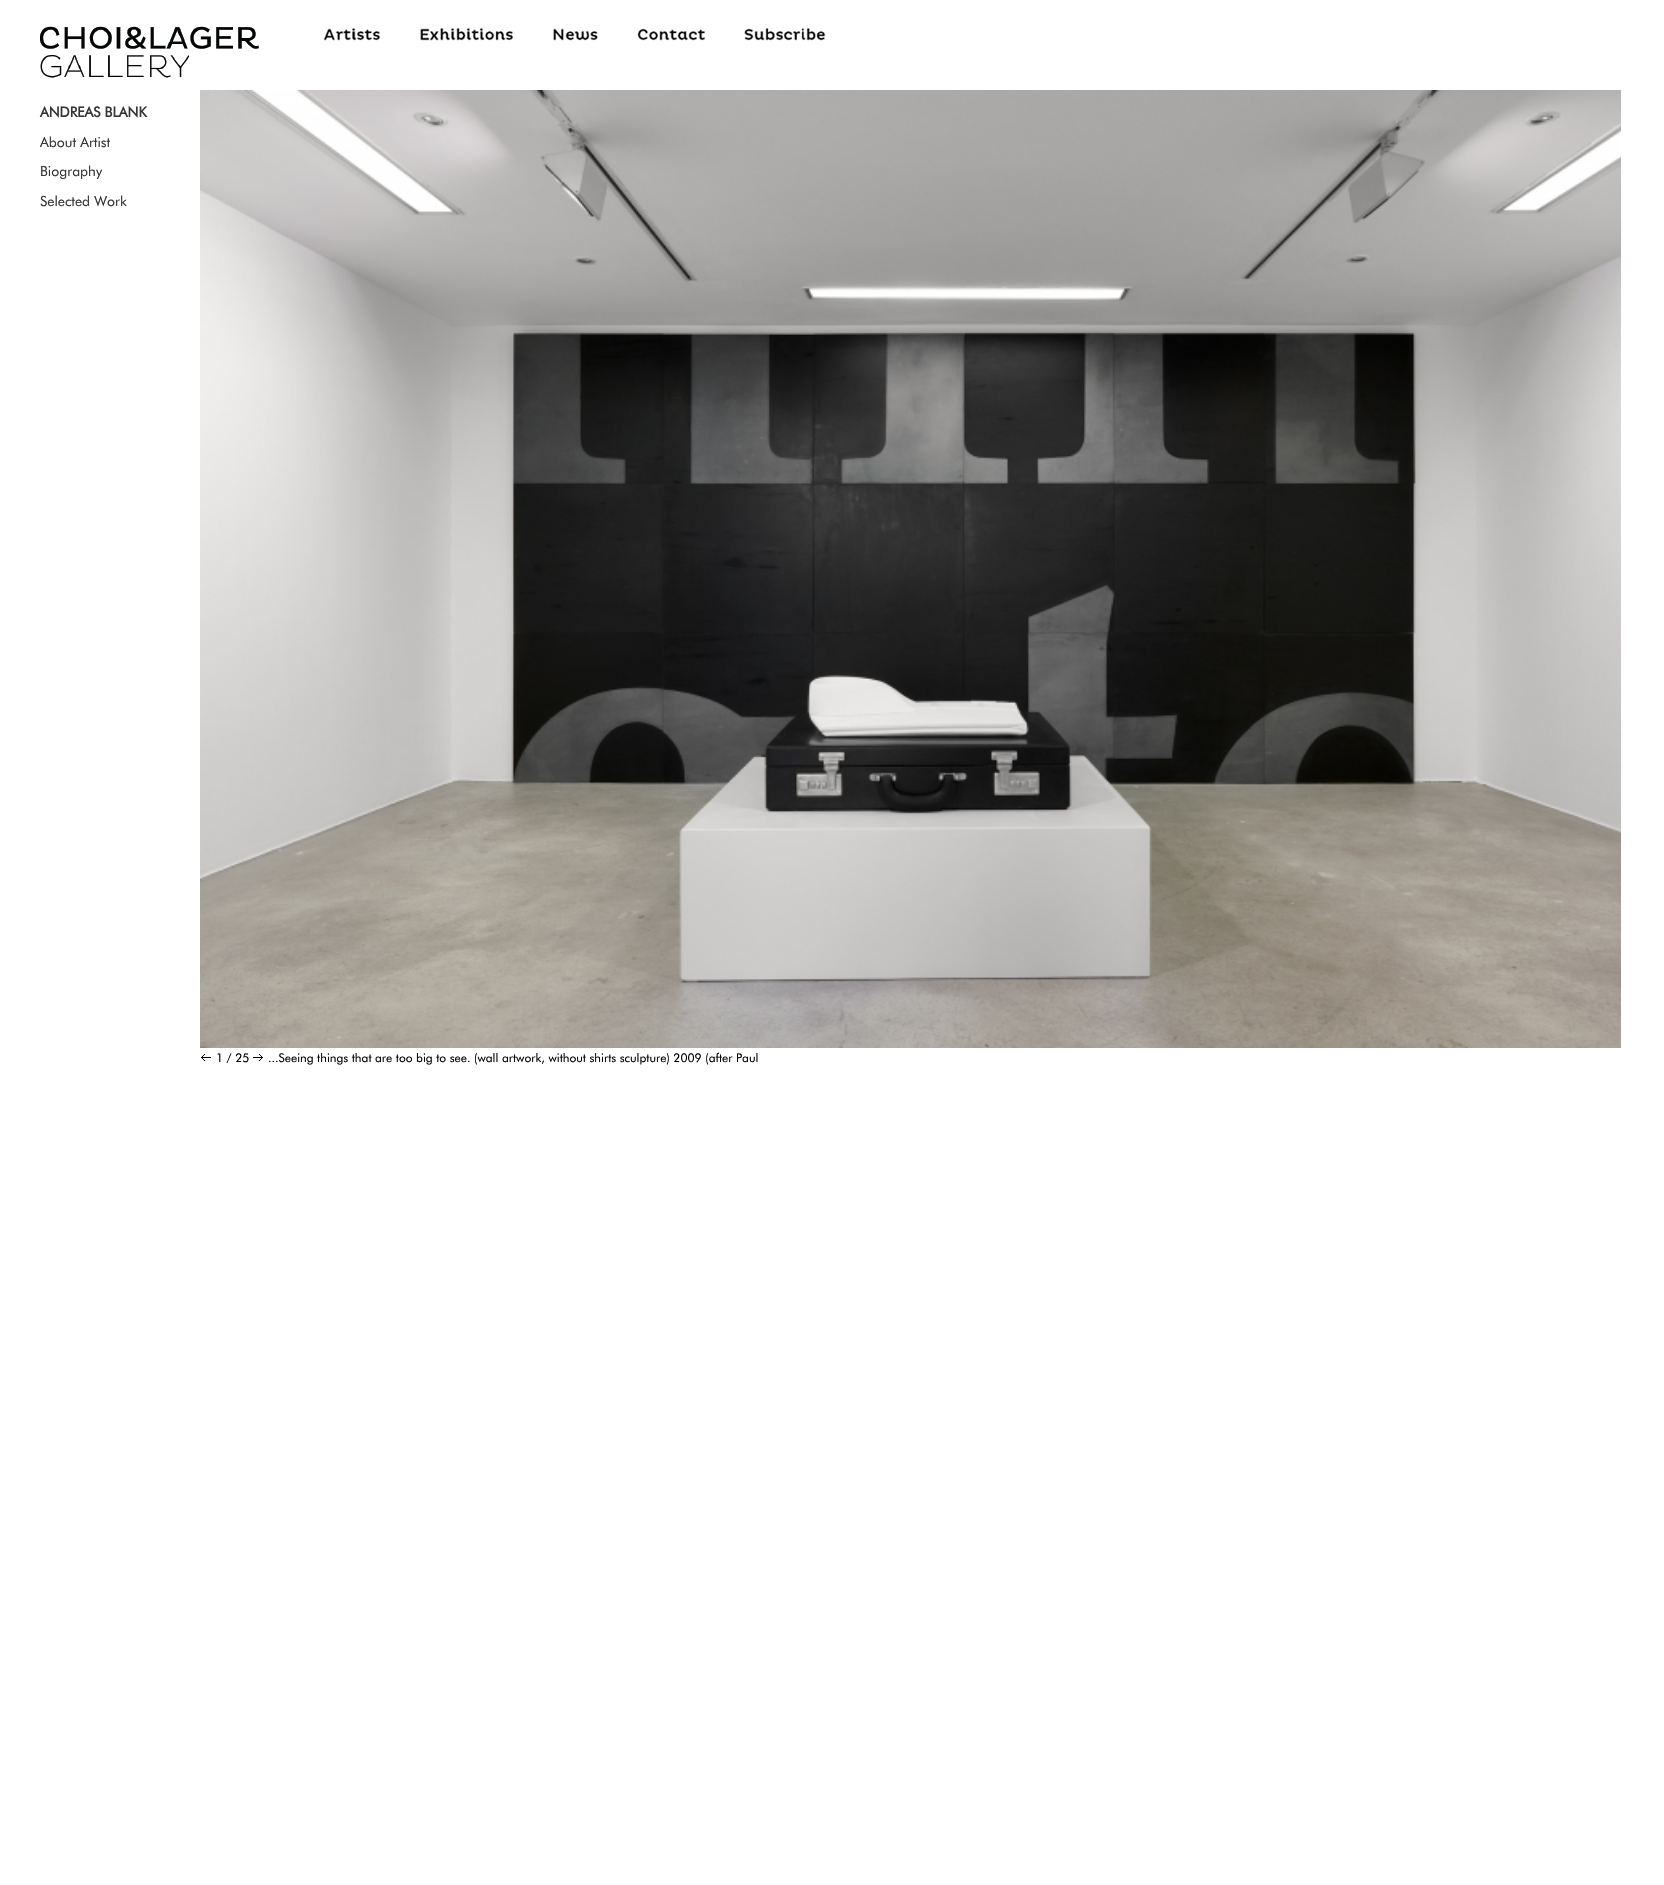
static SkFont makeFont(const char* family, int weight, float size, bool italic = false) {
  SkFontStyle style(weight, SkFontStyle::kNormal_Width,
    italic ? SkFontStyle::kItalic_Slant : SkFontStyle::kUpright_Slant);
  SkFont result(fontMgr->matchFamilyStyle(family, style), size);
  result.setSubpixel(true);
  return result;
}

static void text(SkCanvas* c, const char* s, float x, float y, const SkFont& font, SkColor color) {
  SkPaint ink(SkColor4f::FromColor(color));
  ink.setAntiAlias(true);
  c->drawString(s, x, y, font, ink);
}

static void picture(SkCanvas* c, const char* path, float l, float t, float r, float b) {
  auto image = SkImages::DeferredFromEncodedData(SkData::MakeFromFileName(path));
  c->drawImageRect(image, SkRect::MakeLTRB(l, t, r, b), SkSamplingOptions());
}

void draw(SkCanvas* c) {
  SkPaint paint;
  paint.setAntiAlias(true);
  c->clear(0xffffffff);
  picture(c, "img_01.png", 40, 26, 259, 78);
  picture(c, "img_02.png", 323, 27, 826, 41);
  SkFont face1 = makeFont("Futura", 700, 14);
  text(c, "ANDREAS BLANK", 40, 117, face1, 0xff353535);
  SkFont face2 = makeFont("Futura", 400, 14);
  text(c, "About Artist", 40, 147, face2, 0xff353535);
  text(c, "Biography", 40, 176, face2, 0xff353535);
  text(c, "Selected Work", 40, 206, face2, 0xff353535);
  picture(c, "img_03.png", 200, 90, 1621, 1048);
  picture(c, "img_04.png", 201, 1054, 211, 1061);
  SkFont face3 = makeFont("Futura", 400, 12);
  text(c, "1 / 25", 216, 1062, face3, 0xff000000);
  picture(c, "img_05.png", 253, 1054, 263, 1061);
  text(c, "...Seeing things that are too big to see. (wall artwork, without shirts sculpture) 2009 (after Paul", 268, 1062, face3, 0xff000000);
}
